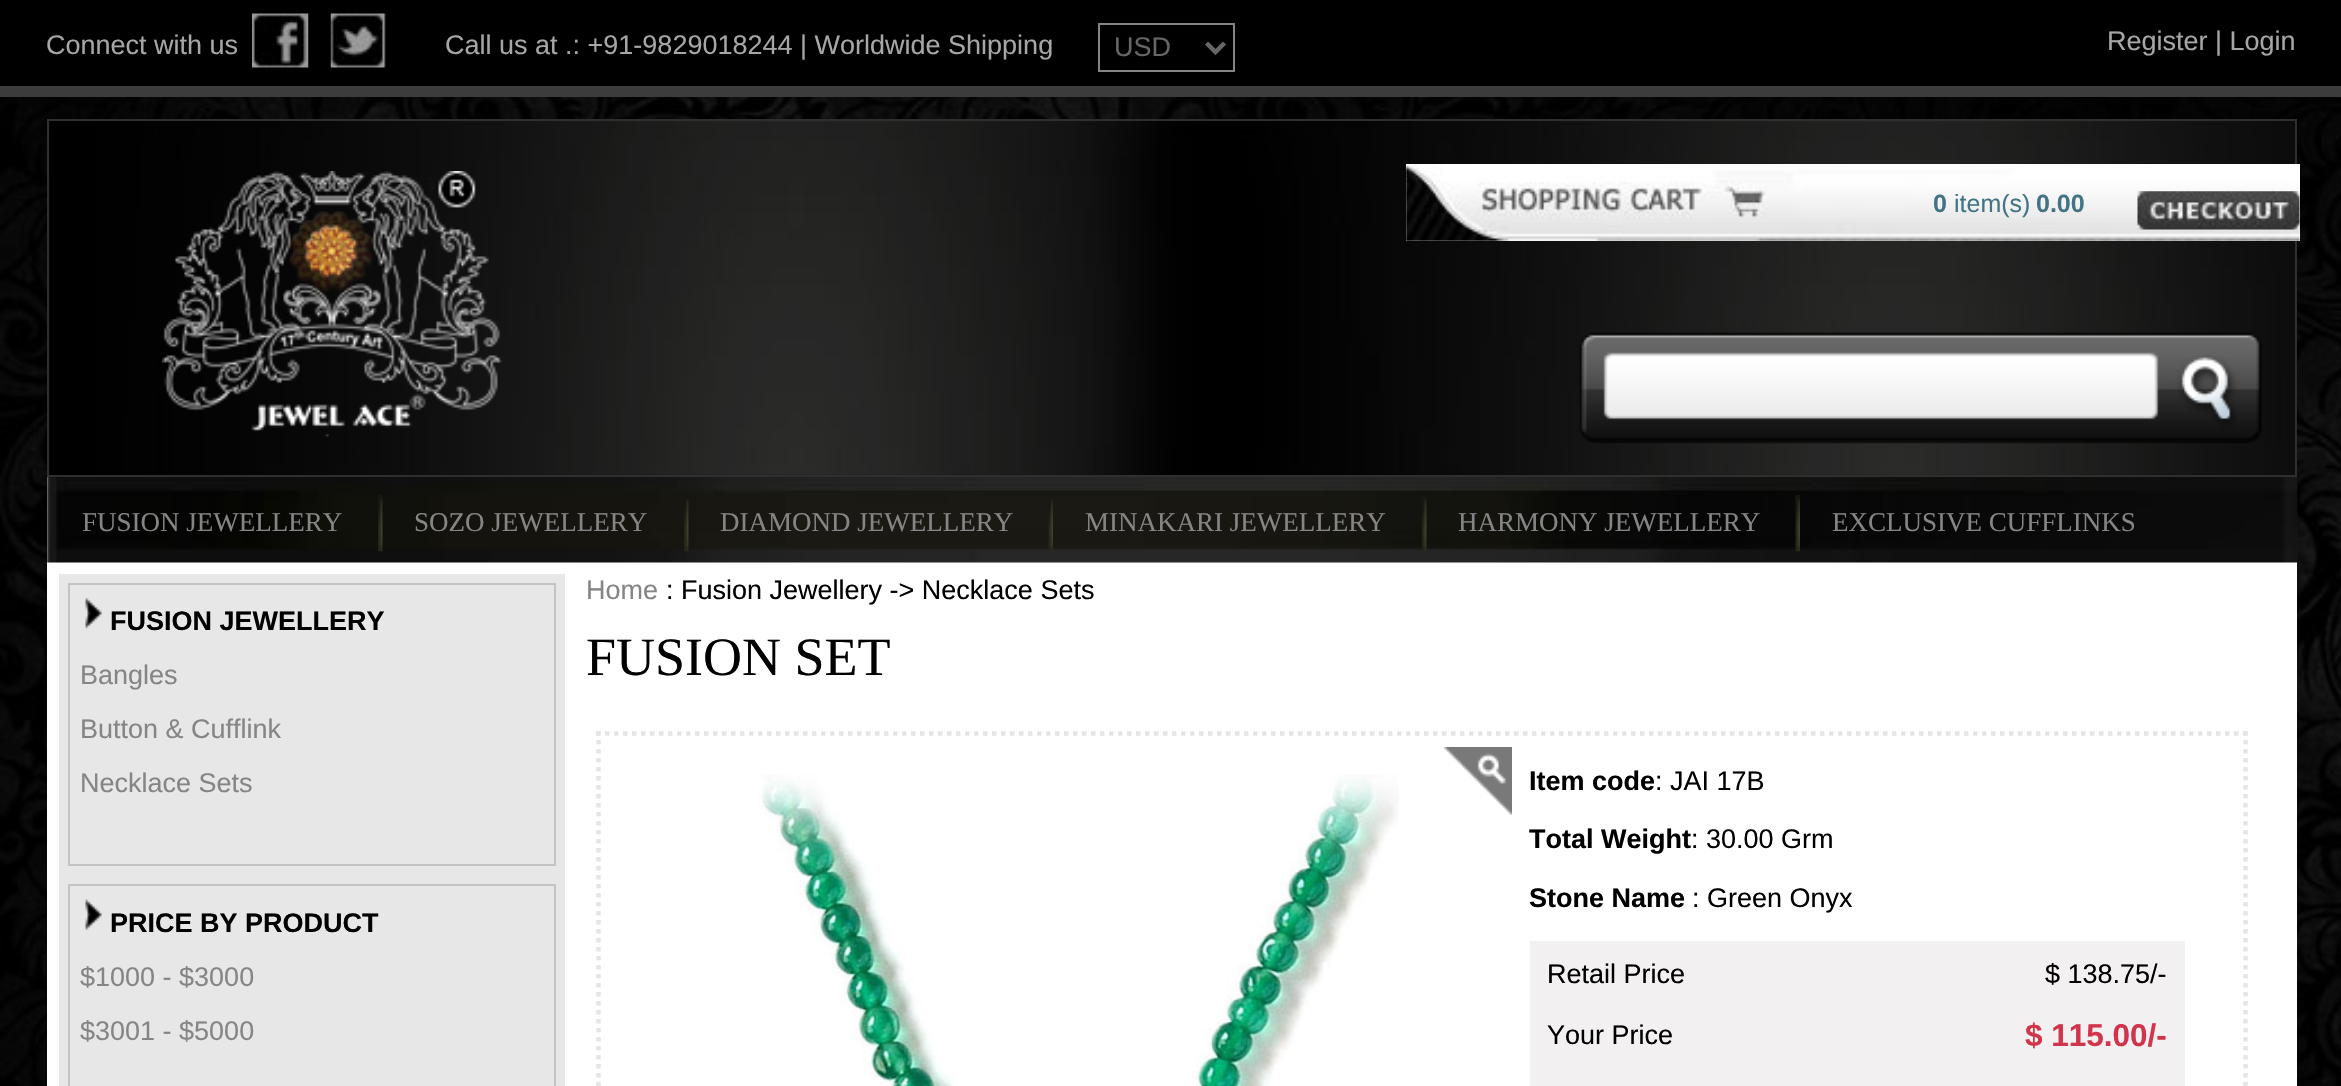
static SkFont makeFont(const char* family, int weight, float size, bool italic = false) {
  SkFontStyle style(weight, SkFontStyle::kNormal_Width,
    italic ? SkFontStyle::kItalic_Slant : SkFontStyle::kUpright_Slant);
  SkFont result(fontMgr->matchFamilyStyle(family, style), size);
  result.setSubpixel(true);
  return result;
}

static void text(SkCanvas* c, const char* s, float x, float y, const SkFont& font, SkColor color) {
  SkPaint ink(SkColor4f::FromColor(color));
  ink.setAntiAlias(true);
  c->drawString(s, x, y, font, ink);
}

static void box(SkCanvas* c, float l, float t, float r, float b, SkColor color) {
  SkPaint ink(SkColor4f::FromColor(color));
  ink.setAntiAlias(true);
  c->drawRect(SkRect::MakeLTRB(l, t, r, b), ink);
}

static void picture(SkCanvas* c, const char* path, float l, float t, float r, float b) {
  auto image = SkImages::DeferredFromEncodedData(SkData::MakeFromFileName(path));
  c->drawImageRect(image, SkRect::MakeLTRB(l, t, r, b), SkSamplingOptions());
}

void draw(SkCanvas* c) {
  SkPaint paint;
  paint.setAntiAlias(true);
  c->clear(0xffffffff);
  picture(c, "img_01.png", 0, 97, 2341, 1086);
  box(c, 0, 0, 2341, 86, 0xff000000);
  box(c, 0, 86, 2341, 97, 0xff3d3c3c);
  SkFont face1 = makeFont("Liberation Sans", 400, 27);
  text(c, "Connect with us", 46, 54, face1, 0xffa8a5a5);
  picture(c, "img_02.png", 252, 13, 309, 68);
  picture(c, "img_03.png", 330, 13, 386, 68);
  text(c, "Call us at .: +91-9829018244 | Worldwide Shipping", 445, 54, face1, 0xffa8a5a5);
  paint.setStyle(SkPaint::kStroke_Style);
  paint.setStrokeWidth(2);
  paint.setColor(0xff858484);
  c->drawRect(SkRect::MakeLTRB(1099, 24, 1234, 71), paint);
  paint.setStrokeWidth(4.5f);
  paint.setColor(0xff666666);
  c->drawPath(SkPathBuilder().moveTo(1206.5f, 43).lineTo(1215.5f, 52).lineTo(1224.5f, 43).detach(), paint);
  text(c, "USD", 1114, 56, face1, 0xff666666);
  text(c, "Register | Login", 2107, 50, face1, 0xffa8a5a5);
  picture(c, "img_04.png", 49, 121, 2295, 475);
  paint.setStrokeWidth(2);
  paint.setColor(0xff2f2f2f);
  c->drawRect(SkRect::MakeLTRB(48, 120, 2296, 476), paint);
  picture(c, "img_05.png", 162, 171, 502, 437);
  box(c, 1406, 164, 2300, 241, 0xffffffff);
  picture(c, "img_06.png", 1406, 164, 2300, 241);
  SkFont face2 = makeFont("Liberation Sans", 700, 25);
  text(c, "0", 1933, 212, face2, 0xff427486);
  SkFont face3 = makeFont("Liberation Sans", 400, 25);
  text(c, "item(s)", 1954, 212, face3, 0xff427486);
  text(c, "0.00", 2036, 212, face2, 0xff427486);
  picture(c, "img_07.png", 2137, 191, 2300, 230);
  picture(c, "img_08.png", 1579, 332, 2262, 444);
  box(c, 47, 477, 2297, 1086, 0xffffffff);
  picture(c, "img_09.png", 47, 477, 2298, 563);
  SkFont face4 = makeFont("Liberation Serif", 400, 27);
  text(c, "FUSION JEWELLERY", 82, 531, face4, 0xff868585);
  picture(c, "img_10.png", 378, 495, 383, 552);
  text(c, "SOZO JEWELLERY", 414, 531, face4, 0xff868585);
  picture(c, "img_11.png", 684, 499, 689, 552);
  text(c, "DIAMOND JEWELLERY", 720, 531, face4, 0xff868585);
  picture(c, "img_12.png", 1048, 500, 1053, 551);
  text(c, "MINAKARI JEWELLERY", 1085, 531, face4, 0xff868585);
  picture(c, "img_13.png", 1422, 495, 1427, 551);
  text(c, "HARMONY JEWELLERY", 1458, 531, face4, 0xff868585);
  picture(c, "img_14.png", 1795, 495, 1800, 552);
  text(c, "EXCLUSIVE CUFFLINKS", 1832, 531, face4, 0xff868585);
  box(c, 59, 574, 565, 1086, 0xffe8e7e7);
  paint.setColor(0xffc4c2c2);
  c->drawRect(SkRect::MakeLTRB(69, 584, 555, 865), paint);
  picture(c, "img_15.png", 85, 598, 102, 629);
  SkFont face5 = makeFont("Liberation Sans", 700, 27);
  text(c, "FUSION JEWELLERY", 110, 630, face5, 0xff000000);
  text(c, "Bangles", 80, 684, face1, 0xff868585);
  text(c, "Button & Cufflink", 80, 738, face1, 0xff868585);
  text(c, "Necklace Sets", 80, 792, face1, 0xff868585);
  c->drawRect(SkRect::MakeLTRB(69, 885, 555, 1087), paint);
  picture(c, "img_16.png", 85, 899, 102, 930);
  text(c, "PRICE BY PRODUCT", 110, 932, face5, 0xff000000);
  text(c, "$1000 - $3000", 80, 986, face1, 0xff868585);
  text(c, "$3001 - $5000", 80, 1040, face1, 0xff868585);
  text(c, "Home", 586, 599, face1, 0xff868585);
  text(c, ": Fusion Jewellery -> Necklace Sets", 666, 599, face1, 0xff000000);
  SkFont face6 = makeFont("Liberation Serif", 400, 54);
  text(c, "FUSION SET", 586, 675, face6, 0xff000000);
  paint.setStrokeWidth(4.5f);
  paint.setColor(0xffe7e4e4);
  paint.setPathEffect(SkDashPathEffect::Make({{4.5f, 4.5f}}, 0));
  c->drawPath(SkPathBuilder().moveTo(596, 733.5f).lineTo(2248, 733.5f).detach(), paint);
  paint.setPathEffect(nullptr);
  paint.setPathEffect(SkDashPathEffect::Make({{4.5f, 4.5f}}, 0));
  c->drawPath(SkPathBuilder().moveTo(2245.5f, 731).lineTo(2245.5f, 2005).detach(), paint);
  paint.setPathEffect(nullptr);
  paint.setPathEffect(SkDashPathEffect::Make({{4.5f, 4.5f}}, 0));
  c->drawPath(SkPathBuilder().moveTo(598.5f, 731).lineTo(598.5f, 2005).detach(), paint);
  paint.setPathEffect(nullptr);
  picture(c, "img_17.png", 758, 774, 1399, 1086);
  picture(c, "img_18.png", 1444, 747, 1512, 815);
  text(c, "Item code", 1529, 790, face5, 0xff000000);
  text(c, ": JAI 17B", 1655, 790, face1, 0xff000000);
  text(c, "Total Weight", 1529, 848, face5, 0xff000000);
  text(c, ": 30.00 Grm", 1691, 848, face1, 0xff000000);
  text(c, "Stone Name", 1529, 907, face5, 0xff000000);
  text(c, ": Green Onyx", 1692, 907, face1, 0xff000000);
  box(c, 1530, 941, 2185, 1086, 0xfff2f0f0);
  text(c, "Retail Price", 1547, 983, face1, 0xff000000);
  text(c, "$ 138.75/-", 2045, 983, face1, 0xff000000);
  text(c, "Your Price", 1547, 1044, face1, 0xff000000);
  SkFont face7 = makeFont("Liberation Sans", 700, 31.5f);
  text(c, "$ 115.00/-", 2025, 1046, face7, 0xffd1344b);
}
